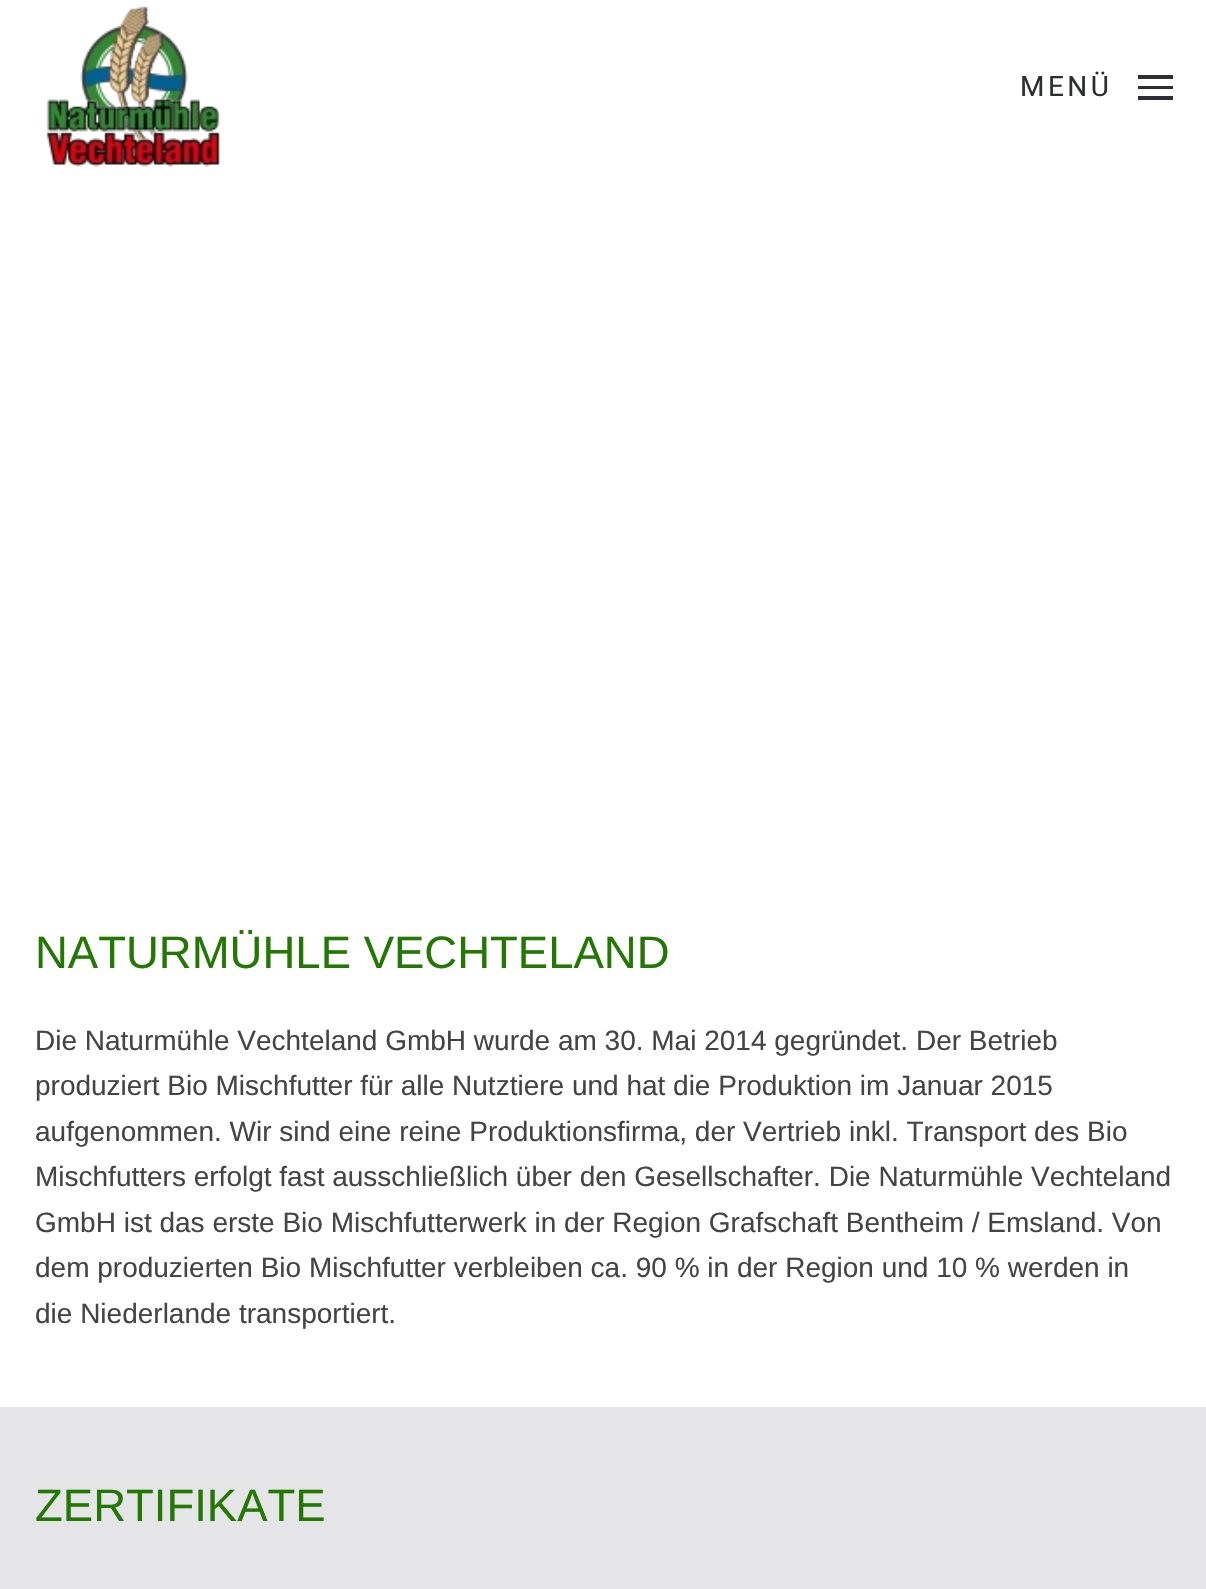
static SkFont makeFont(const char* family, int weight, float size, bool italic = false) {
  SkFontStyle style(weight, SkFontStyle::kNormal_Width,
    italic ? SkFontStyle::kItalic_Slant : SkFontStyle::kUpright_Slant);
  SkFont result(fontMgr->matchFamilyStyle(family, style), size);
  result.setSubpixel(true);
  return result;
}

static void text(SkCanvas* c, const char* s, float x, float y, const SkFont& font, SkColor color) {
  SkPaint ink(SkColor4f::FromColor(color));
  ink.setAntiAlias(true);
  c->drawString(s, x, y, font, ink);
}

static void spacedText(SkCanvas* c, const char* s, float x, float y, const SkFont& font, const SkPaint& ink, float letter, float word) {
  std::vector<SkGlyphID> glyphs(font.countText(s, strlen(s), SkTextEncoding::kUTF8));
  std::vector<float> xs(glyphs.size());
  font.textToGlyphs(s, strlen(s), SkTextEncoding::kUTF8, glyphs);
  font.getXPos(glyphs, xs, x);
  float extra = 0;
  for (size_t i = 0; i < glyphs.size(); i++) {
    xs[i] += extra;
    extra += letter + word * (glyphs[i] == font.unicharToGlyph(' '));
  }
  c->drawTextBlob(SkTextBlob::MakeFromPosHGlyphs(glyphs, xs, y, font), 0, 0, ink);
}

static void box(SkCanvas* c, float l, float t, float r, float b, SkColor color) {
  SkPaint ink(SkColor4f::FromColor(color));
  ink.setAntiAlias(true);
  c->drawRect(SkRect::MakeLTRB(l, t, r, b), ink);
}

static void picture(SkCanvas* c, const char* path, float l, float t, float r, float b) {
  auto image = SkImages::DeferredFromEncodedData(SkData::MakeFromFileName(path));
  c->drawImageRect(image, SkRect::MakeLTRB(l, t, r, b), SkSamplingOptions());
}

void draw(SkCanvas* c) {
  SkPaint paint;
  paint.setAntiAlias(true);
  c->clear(0xffffffff);
  picture(c, "img_01.png", 46, 6, 221, 167);
  SkFont face1 = makeFont("Roboto", 400, 28);
  paint.setColor(0xff2d2e33);
  spacedText(c, "MENÜ", 1020, 96, face1, paint, 3.5f, 0);
  box(c, 1138, 75, 1173, 79, 0xff2d2e33);
  box(c, 1138, 86, 1173, 89, 0xff2d2e33);
  box(c, 1138, 96, 1173, 100, 0xff2d2e33);
  SkFont face2 = makeFont("Liberation Sans", 400, 45.5f);
  text(c, "NATURMÜHLE VECHTELAND", 35, 968, face2, 0xff237804);
  SkFont face3 = makeFont("Liberation Sans", 400, 28);
  text(c, "Die Naturmühle Vechteland GmbH wurde am 30. Mai 2014 gegründet. Der Betrieb", 35, 1050, face3, 0xff444444);
  text(c, "produziert Bio Mischfutter für alle Nutztiere und hat die Produktion im Januar 2015", 35, 1095, face3, 0xff444444);
  text(c, "aufgenommen. Wir sind eine reine Produktionsfirma, der Vertrieb inkl. Transport des Bio", 35, 1141, face3, 0xff444444);
  text(c, "Mischfutters erfolgt fast ausschließlich über den Gesellschafter. Die Naturmühle Vechteland", 35, 1186, face3, 0xff444444);
  text(c, "GmbH ist das erste Bio Mischfutterwerk in der Region Grafschaft Bentheim / Emsland. Von", 35, 1232, face3, 0xff444444);
  text(c, "dem produzierten Bio Mischfutter verbleiben ca. 90 % in der Region und 10 % werden in", 35, 1277, face3, 0xff444444);
  text(c, "die Niederlande transportiert.", 35, 1323, face3, 0xff444444);
  box(c, 0, 1407, 1206, 1589, 0xffe5e5e7);
  text(c, "ZERTIFIKATE", 35, 1521, face2, 0xff237804);
}
